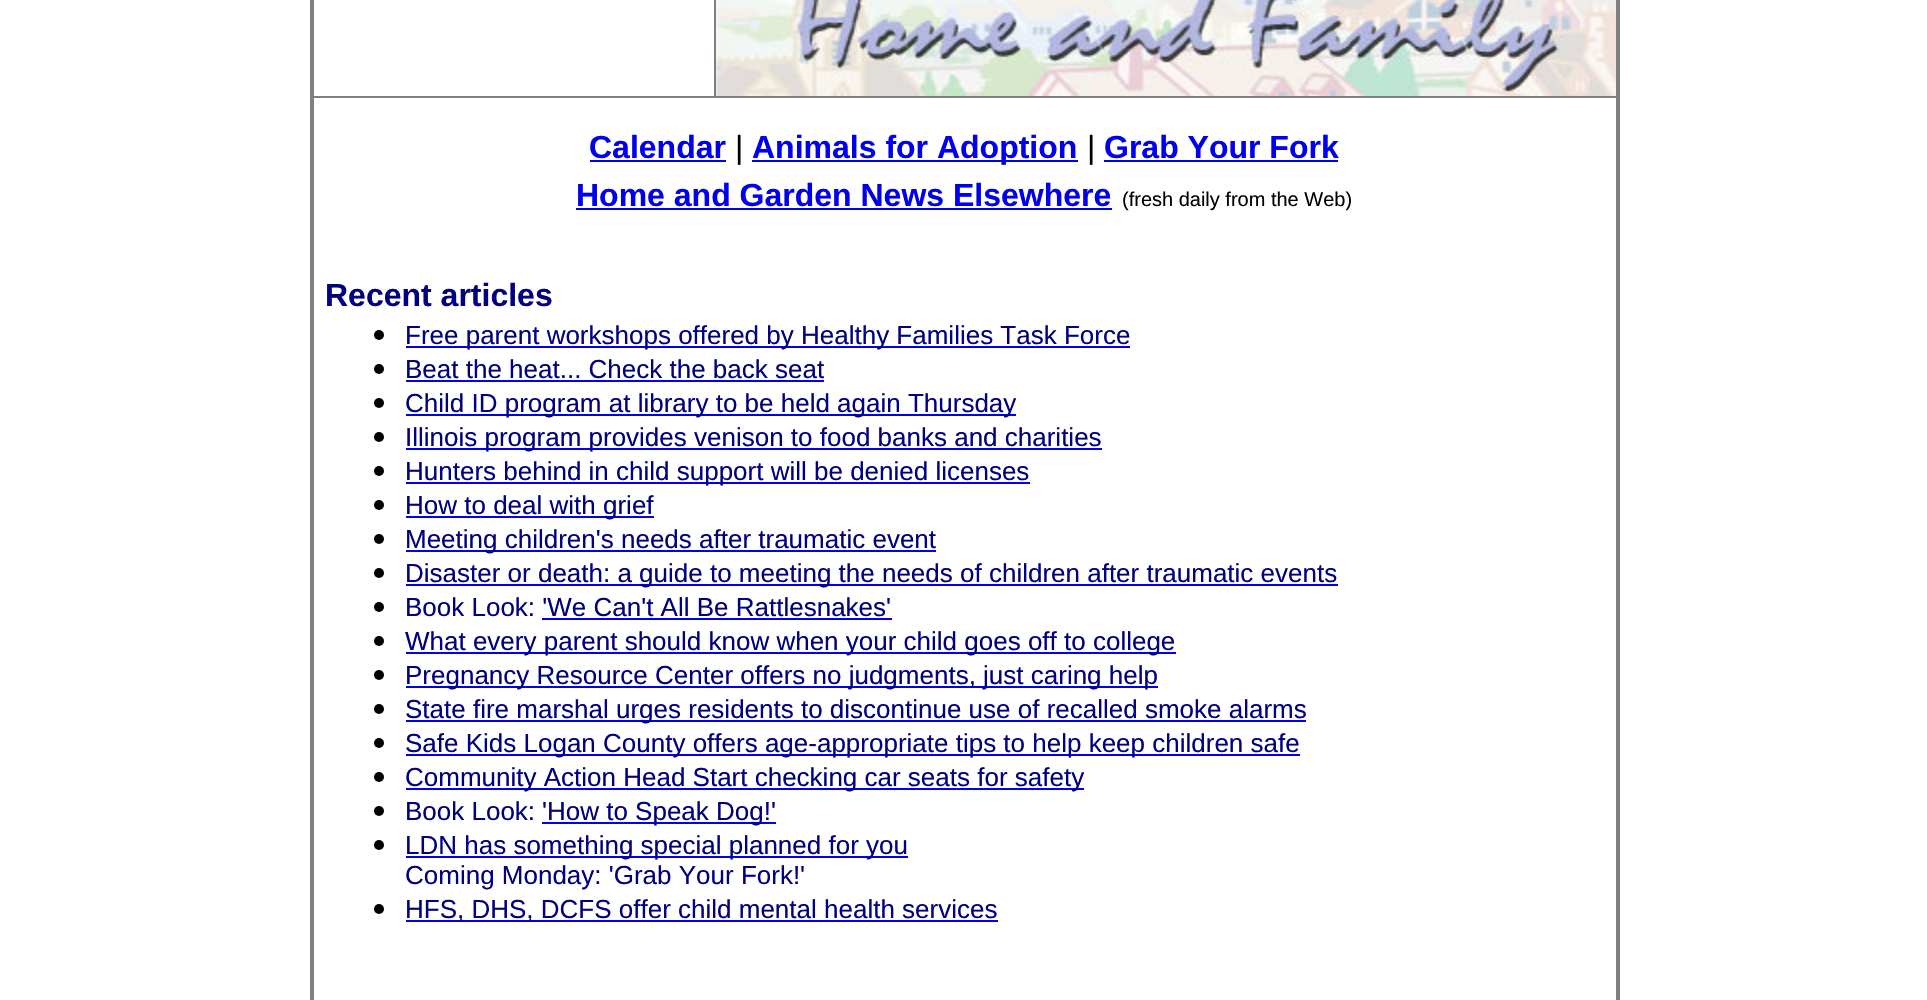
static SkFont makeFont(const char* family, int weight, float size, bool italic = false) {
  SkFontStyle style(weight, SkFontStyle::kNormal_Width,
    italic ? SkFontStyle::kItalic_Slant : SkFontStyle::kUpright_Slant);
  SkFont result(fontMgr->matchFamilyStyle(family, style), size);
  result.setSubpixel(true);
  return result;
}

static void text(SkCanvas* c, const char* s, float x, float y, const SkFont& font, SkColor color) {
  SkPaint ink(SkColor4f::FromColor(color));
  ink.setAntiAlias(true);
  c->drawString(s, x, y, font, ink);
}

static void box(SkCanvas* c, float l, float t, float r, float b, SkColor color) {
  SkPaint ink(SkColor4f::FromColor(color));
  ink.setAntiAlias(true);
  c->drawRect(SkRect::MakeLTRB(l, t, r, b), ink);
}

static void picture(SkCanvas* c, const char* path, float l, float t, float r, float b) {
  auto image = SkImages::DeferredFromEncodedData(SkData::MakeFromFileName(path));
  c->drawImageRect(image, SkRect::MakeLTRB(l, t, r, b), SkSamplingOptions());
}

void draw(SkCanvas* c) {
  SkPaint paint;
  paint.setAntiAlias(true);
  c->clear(0xffffffff);
  box(c, 310, 96, 1618, 98, 0xff808080);
  box(c, 1616, 0, 1620, 1000, 0xff808080);
  box(c, 310, 0, 314, 1000, 0xff808080);
  box(c, 714, 0, 716, 98, 0xff808080);
  picture(c, "img_01.png", 716, 0, 1616, 96);
  SkFont face1 = makeFont("Liberation Sans", 700, 32);
  text(c, "Calendar", 589, 158, face1, 0xff0000ee);
  box(c, 590, 160, 726, 162, 0xff0000ee);
  SkFont face2 = makeFont("Liberation Sans", 400, 32);
  text(c, "|", 735, 158, face2, 0xff000000);
  box(c, 752, 160, 1078, 162, 0xff0000ee);
  text(c, "Animals for Adoption", 752, 158, face1, 0xff0000ee);
  text(c, "|", 1087, 158, face2, 0xff000000);
  text(c, "Grab Your Fork", 1104, 158, face1, 0xff0000ee);
  box(c, 1104, 160, 1338, 162, 0xff0000ee);
  text(c, "Home and Garden News Elsewhere", 576, 206, face1, 0xff0000ee);
  box(c, 576, 208, 1112, 210, 0xff0000ee);
  SkFont face3 = makeFont("Liberation Sans", 400, 20);
  text(c, "(fresh daily from the Web)", 1122, 206, face3, 0xff000000);
  text(c, "Recent articles", 325, 306, face1, 0xff000080);
  paint.setColor(0xff000000);
  c->drawCircle(379, 335, 5, paint);
  box(c, 406, 346, 1130, 348, 0xff0000ee);
  SkFont face4 = makeFont("Liberation Sans", 400, 26);
  text(c, "Free parent workshops offered by Healthy Families Task Force", 405, 344, face4, 0xff000080);
  c->drawCircle(379, 369, 5, paint);
  text(c, "Beat the heat... Check the back seat", 405, 378, face4, 0xff000080);
  box(c, 406, 380, 824, 382, 0xff0000ee);
  c->drawCircle(379, 403, 5, paint);
  box(c, 406, 414, 1016, 416, 0xff0000ee);
  text(c, "Child ID program at library to be held again Thursday", 405, 412, face4, 0xff000080);
  c->drawCircle(379, 437, 5, paint);
  box(c, 406, 448, 1102, 450, 0xff0000ee);
  text(c, "Illinois program provides venison to food banks and charities", 405, 446, face4, 0xff000080);
  c->drawCircle(379, 471, 5, paint);
  box(c, 406, 482, 1030, 484, 0xff0000ee);
  text(c, "Hunters behind in child support will be denied licenses", 405, 480, face4, 0xff000080);
  c->drawCircle(379, 505, 5, paint);
  box(c, 406, 516, 654, 518, 0xff0000ee);
  text(c, "How to deal with grief", 405, 514, face4, 0xff000080);
  c->drawCircle(379, 539, 5, paint);
  box(c, 406, 550, 936, 552, 0xff0000ee);
  text(c, "Meeting children's needs after traumatic event", 405, 548, face4, 0xff000080);
  c->drawCircle(379, 573, 5, paint);
  box(c, 406, 584, 1338, 586, 0xff0000ee);
  text(c, "Disaster or death: a guide to meeting the needs of children after traumatic events", 405, 582, face4, 0xff000080);
  c->drawCircle(379, 607, 5, paint);
  text(c, "Book Look: 'We Can't All Be Rattlesnakes'", 405, 616, face4, 0xff000080);
  box(c, 542, 618, 892, 620, 0xff0000ee);
  c->drawCircle(379, 641, 5, paint);
  box(c, 406, 652, 1176, 654, 0xff0000ee);
  text(c, "What every parent should know when your child goes off to college", 405, 650, face4, 0xff000080);
  c->drawCircle(379, 675, 5, paint);
  box(c, 406, 686, 1158, 688, 0xff0000ee);
  text(c, "Pregnancy Resource Center offers no judgments, just caring help", 405, 684, face4, 0xff000080);
  c->drawCircle(379, 709, 5, paint);
  box(c, 406, 720, 1306, 722, 0xff0000ee);
  text(c, "State fire marshal urges residents to discontinue use of recalled smoke alarms", 405, 718, face4, 0xff000080);
  c->drawCircle(379, 743, 5, paint);
  box(c, 406, 754, 1300, 756, 0xff0000ee);
  text(c, "Safe Kids Logan County offers age-appropriate tips to help keep children safe", 405, 752, face4, 0xff000080);
  c->drawCircle(379, 777, 5, paint);
  box(c, 406, 788, 1084, 790, 0xff0000ee);
  text(c, "Community Action Head Start checking car seats for safety", 405, 786, face4, 0xff000080);
  c->drawCircle(379, 811, 5, paint);
  text(c, "Book Look:", 405, 820, face4, 0xff000080);
  box(c, 542, 822, 776, 824, 0xff0000ee);
  text(c, "'How to Speak Dog!'", 542, 820, face4, 0xff000080);
  c->drawCircle(379, 845, 5, paint);
  box(c, 406, 856, 908, 858, 0xff0000ee);
  text(c, "LDN has something special planned for you", 405, 854, face4, 0xff000080);
  text(c, "Coming Monday: 'Grab Your Fork!'", 405, 884, face4, 0xff000080);
  c->drawCircle(379, 909, 5, paint);
  box(c, 406, 920, 998, 922, 0xff0000ee);
  text(c, "HFS, DHS, DCFS offer child mental health services", 405, 918, face4, 0xff000080);
}
